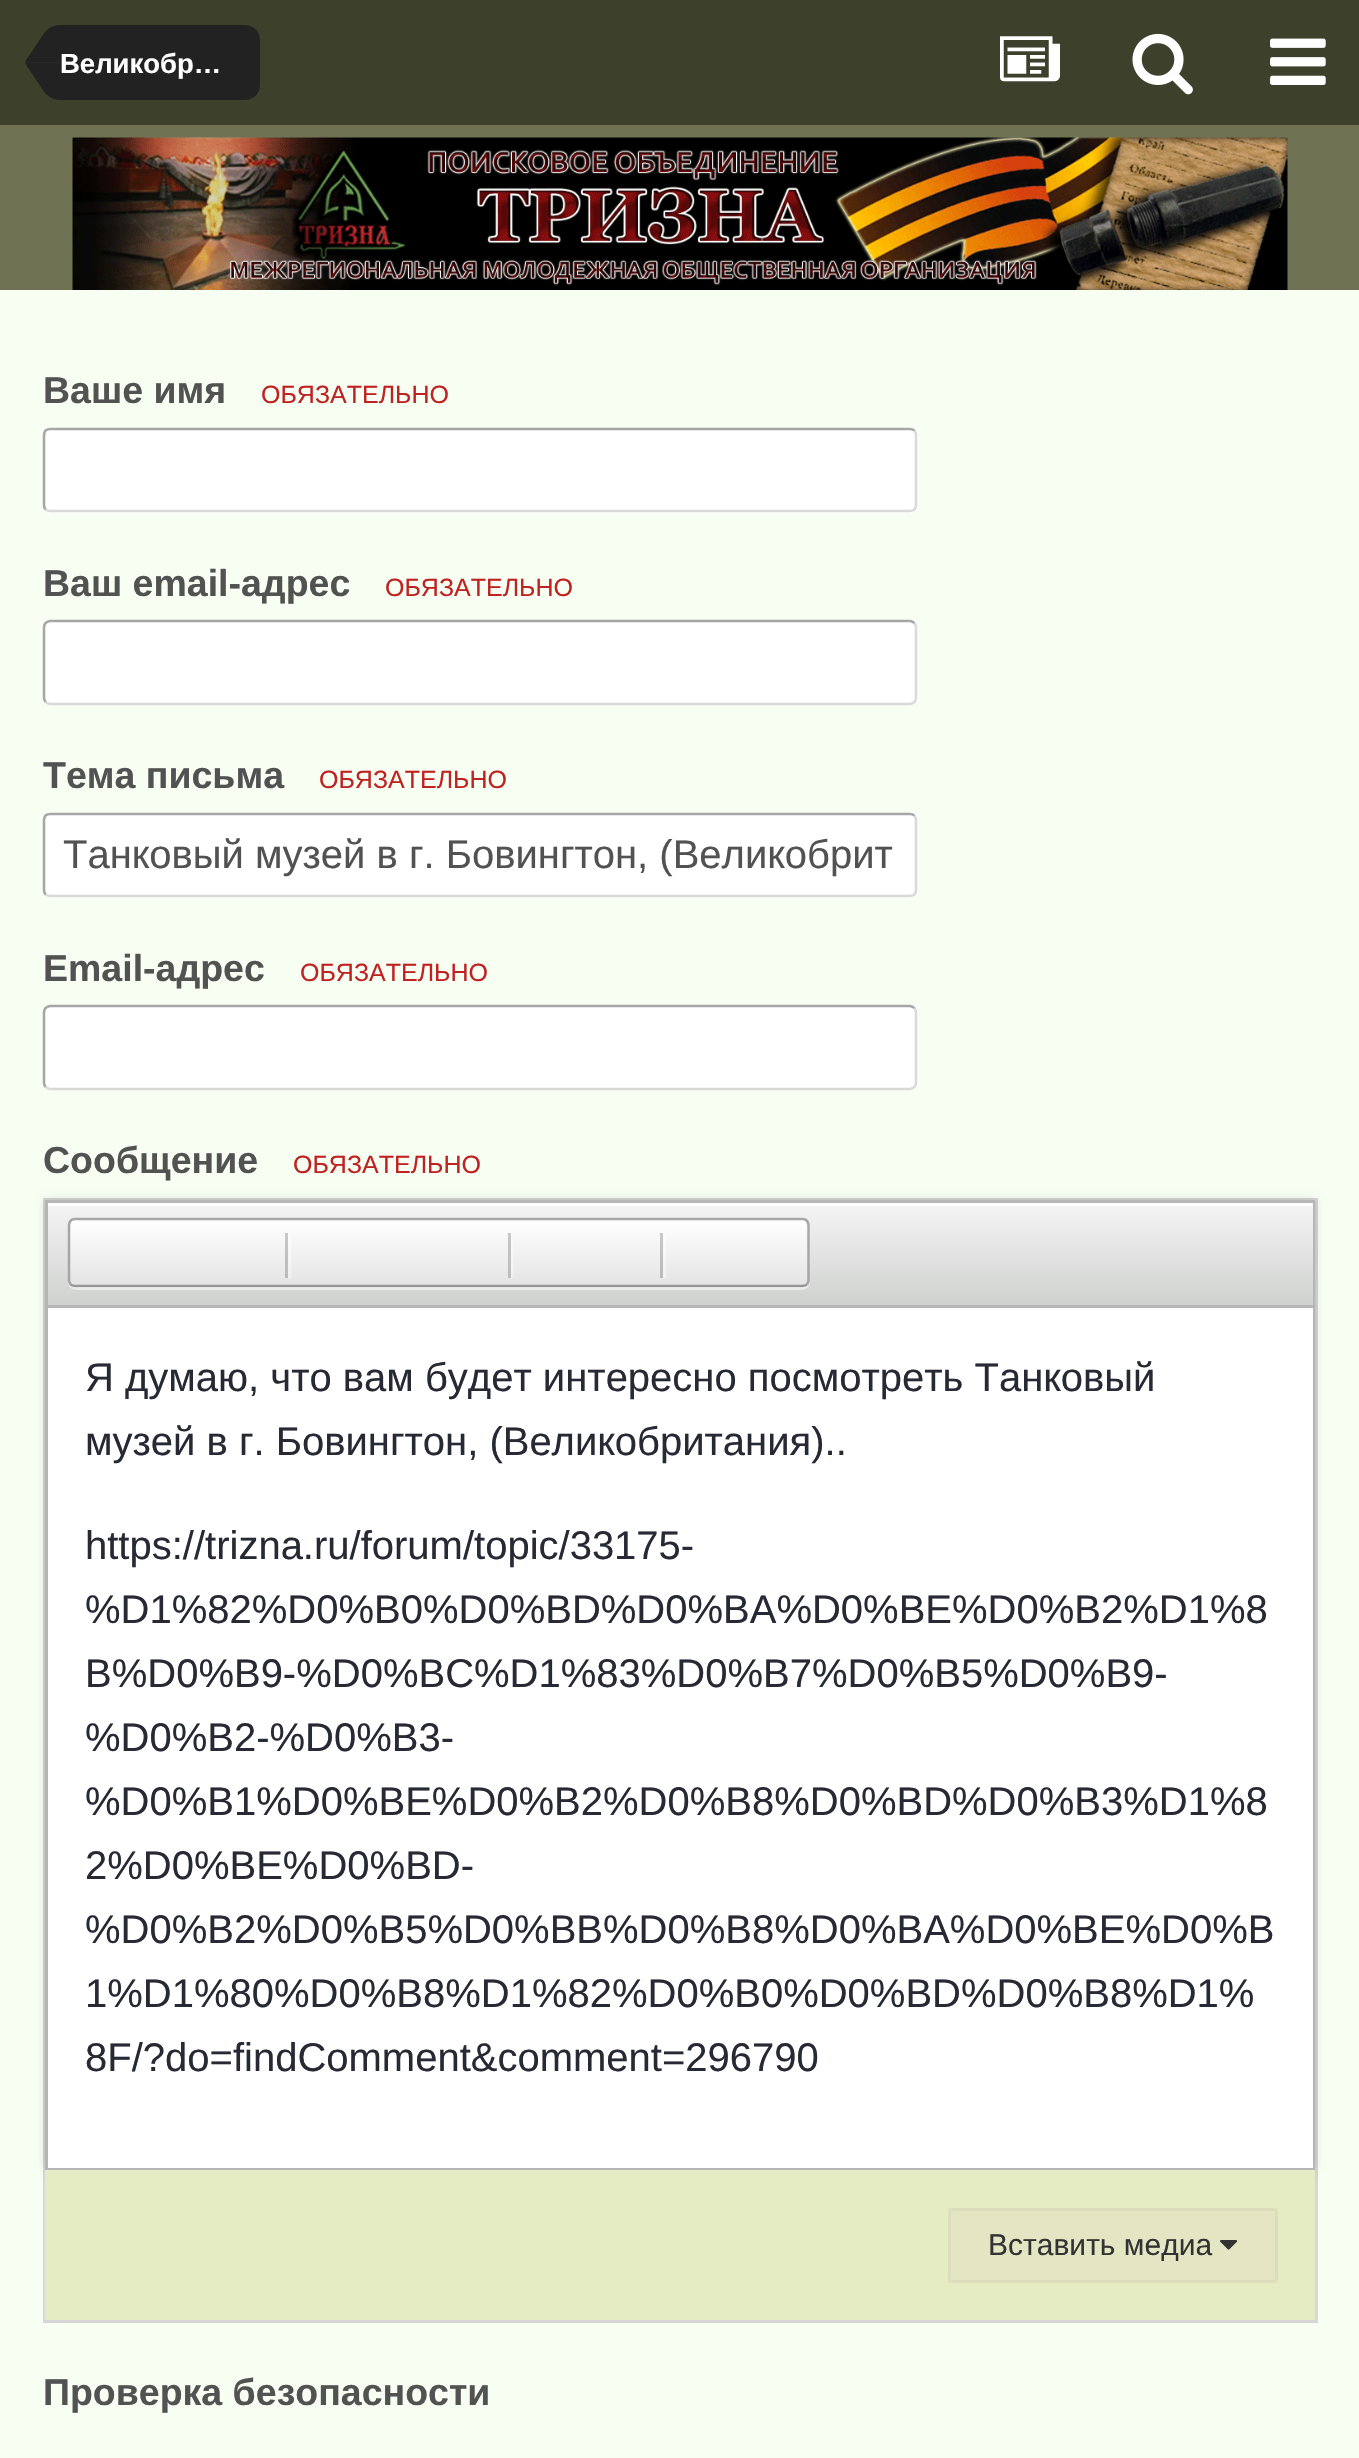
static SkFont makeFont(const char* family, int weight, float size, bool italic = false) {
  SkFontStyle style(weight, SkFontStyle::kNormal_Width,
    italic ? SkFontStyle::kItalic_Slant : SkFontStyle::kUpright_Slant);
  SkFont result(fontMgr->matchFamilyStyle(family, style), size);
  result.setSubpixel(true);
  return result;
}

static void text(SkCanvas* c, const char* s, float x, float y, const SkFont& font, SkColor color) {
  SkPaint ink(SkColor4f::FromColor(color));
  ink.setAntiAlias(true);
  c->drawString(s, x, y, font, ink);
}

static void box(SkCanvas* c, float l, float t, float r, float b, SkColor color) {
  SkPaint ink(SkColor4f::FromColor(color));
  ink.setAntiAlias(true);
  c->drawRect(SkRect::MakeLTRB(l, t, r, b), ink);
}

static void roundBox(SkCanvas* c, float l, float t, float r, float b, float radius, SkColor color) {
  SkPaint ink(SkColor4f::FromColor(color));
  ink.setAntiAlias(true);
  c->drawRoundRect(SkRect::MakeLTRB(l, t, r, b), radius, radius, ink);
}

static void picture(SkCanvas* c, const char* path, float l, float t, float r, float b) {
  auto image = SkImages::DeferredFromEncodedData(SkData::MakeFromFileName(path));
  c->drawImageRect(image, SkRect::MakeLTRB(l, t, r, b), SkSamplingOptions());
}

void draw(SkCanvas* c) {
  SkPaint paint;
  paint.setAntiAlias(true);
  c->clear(0xff3d402b);
  paint.setColor(0xff222222);
  c->drawPath(SkPathBuilder().moveTo(60, 25).lineTo(245, 25).cubicTo(253.5f, 25, 260, 31.5f, 260, 40).lineTo(260, 85).cubicTo(260, 93.5f, 253.5f, 100, 245, 100).lineTo(60, 100).close().detach(), paint);
  c->drawPath(SkPathBuilder().moveTo(34.5f, 77.5f).cubicTo(33.5f, 75.5f, 25, 64, 25, 62.5f).lineTo(60, 62.5f).lineTo(60, 100).cubicTo(54.5f, 100, 49, 97.5f, 44.5f, 92.5f).close().detach(), paint);
  c->drawPath(SkPathBuilder().moveTo(60, 25).lineTo(60, 62.5f).lineTo(25, 62.5f).cubicTo(25, 61.5f, 43, 35, 44.5f, 32.5f).lineTo(48, 29).cubicTo(51.5f, 26.5f, 55.5f, 25, 60, 25).close().detach(), paint);
  SkFont face1 = makeFont("Liberation Sans", 700, 27.5f);
  text(c, "Великобр…", 60, 73, face1, 0xffffffff);
  picture(c, "img_01.png", 1000, 36, 1060, 82);
  picture(c, "img_02.png", 1132, 33, 1193, 95);
  picture(c, "img_03.png", 1270, 38, 1326, 85);
  box(c, 0, 125, 1359, 290, 0xff6f7353);
  picture(c, "img_04.png", 72, 137, 1288, 290);
  box(c, 0, 290, 1359, 2458, 0xfff7fff2);
  SkFont face2 = makeFont("Liberation Sans", 700, 37.5f);
  text(c, "Ваше имя", 43, 403, face2, 0xff525252);
  SkFont face3 = makeFont("Liberation Sans", 400, 25);
  text(c, "ОБЯЗАТЕЛЬНО", 261, 403, face3, 0xffc02222);
  roundBox(c, 43, 428, 918, 513, 8, 0xffffffff);
  paint.setStyle(SkPaint::kStroke_Style);
  paint.setStrokeWidth(2.5f);
  paint.setColor(0xffd9d9d9);
  c->drawPath(SkPathBuilder().moveTo(914.5f, 430.5f).cubicTo(915.5f, 432, 916, 433.5f, 916, 435).lineTo(916, 505).cubicTo(916, 506.5f, 915.5f, 508, 914.5f, 509.5f).cubicTo(913, 510.5f, 911.5f, 511, 910, 511).lineTo(50, 511).cubicTo(48.5f, 511, 47, 510.5f, 45.5f, 509.5f).detach(), paint);
  paint.setColor(0xffa6a6a6);
  c->drawPath(SkPathBuilder().moveTo(45.5f, 509.5f).cubicTo(44.5f, 508, 44, 506.5f, 44, 505).lineTo(44, 435).cubicTo(44, 433.5f, 44.5f, 432, 45.5f, 430.5f).cubicTo(47, 429.5f, 48.5f, 429, 50, 429).lineTo(910, 429).cubicTo(911.5f, 429, 913, 429.5f, 914.5f, 430.5f).detach(), paint);
  text(c, "Ваш email-адрес", 43, 596, face2, 0xff525252);
  text(c, "ОБЯЗАТЕЛЬНО", 385, 596, face3, 0xffc02222);
  roundBox(c, 43, 620, 918, 705, 8, 0xffffffff);
  paint.setColor(0xffd9d9d9);
  c->drawPath(SkPathBuilder().moveTo(914.5f, 623).cubicTo(915.5f, 624.5f, 916, 626, 916, 627.5f).lineTo(916, 697.5f).cubicTo(916, 699, 915.5f, 700.5f, 914.5f, 702).cubicTo(913, 703, 911.5f, 704, 910, 704).lineTo(50, 704).cubicTo(48.5f, 704, 47, 703, 45.5f, 702).detach(), paint);
  paint.setColor(0xffa6a6a6);
  c->drawPath(SkPathBuilder().moveTo(45.5f, 702).cubicTo(44.5f, 700.5f, 44, 699, 44, 697.5f).lineTo(44, 627.5f).cubicTo(44, 626, 44.5f, 624.5f, 45.5f, 623).cubicTo(47, 622, 48.5f, 621, 50, 621).lineTo(910, 621).cubicTo(911.5f, 621, 913, 622, 914.5f, 623).detach(), paint);
  text(c, "Тема письма", 43, 788, face2, 0xff525252);
  text(c, "ОБЯЗАТЕЛЬНО", 319, 788, face3, 0xffc02222);
  roundBox(c, 43, 813, 918, 898, 8, 0xffffffff);
  paint.setColor(0xffd9d9d9);
  c->drawPath(SkPathBuilder().moveTo(914.5f, 815.5f).cubicTo(915.5f, 817, 916, 818.5f, 916, 820).lineTo(916, 890).cubicTo(916, 891.5f, 915.5f, 893, 914.5f, 894.5f).cubicTo(913, 895.5f, 911.5f, 896, 910, 896).lineTo(50, 896).cubicTo(48.5f, 896, 47, 895.5f, 45.5f, 894.5f).detach(), paint);
  paint.setColor(0xffa6a6a6);
  c->drawPath(SkPathBuilder().moveTo(45.5f, 894.5f).cubicTo(44.5f, 893, 44, 891.5f, 44, 890).lineTo(44, 820).cubicTo(44, 818.5f, 44.5f, 817, 45.5f, 815.5f).cubicTo(47, 814.5f, 48.5f, 814, 50, 814).lineTo(910, 814).cubicTo(911.5f, 814, 913, 814.5f, 914.5f, 815.5f).detach(), paint);
  SkFont face4 = makeFont("Liberation Sans", 400, 40);
  text(c, "Танковый музей в г. Бовингтон, (Великобрит", 63, 868, face4, 0xff525252);
  text(c, "Email-адрес", 43, 981, face2, 0xff525252);
  text(c, "ОБЯЗАТЕЛЬНО", 300, 981, face3, 0xffc02222);
  roundBox(c, 43, 1005, 918, 1090, 8, 0xffffffff);
  paint.setColor(0xffd9d9d9);
  c->drawPath(SkPathBuilder().moveTo(914.5f, 1008).cubicTo(915.5f, 1009.5f, 916, 1011, 916, 1012.5f).lineTo(916, 1082.5f).cubicTo(916, 1084, 915.5f, 1085.5f, 914.5f, 1087).cubicTo(913, 1088, 911.5f, 1089, 910, 1089).lineTo(50, 1089).cubicTo(48.5f, 1089, 47, 1088, 45.5f, 1087).detach(), paint);
  paint.setColor(0xffa6a6a6);
  c->drawPath(SkPathBuilder().moveTo(45.5f, 1087).cubicTo(44.5f, 1085.5f, 44, 1084, 44, 1082.5f).lineTo(44, 1012.5f).cubicTo(44, 1011, 44.5f, 1009.5f, 45.5f, 1008).cubicTo(47, 1007, 48.5f, 1006, 50, 1006).lineTo(910, 1006).cubicTo(911.5f, 1006, 913, 1007, 914.5f, 1008).detach(), paint);
  text(c, "Сообщение", 43, 1173, face2, 0xff525252);
  text(c, "ОБЯЗАТЕЛЬНО", 293, 1173, face3, 0xffc02222);
  box(c, 43, 1198, 1318, 2323, 0xffd6d6d6);
  paint.setStyle(SkPaint::kFill_Style);
  paint.setColor(0x26000000);
  paint.setMaskFilter(SkMaskFilter::MakeBlur(kNormal_SkBlurStyle, 4));
  c->drawRect(SkRect::MakeLTRB(45, 1200, 1315, 2170), paint);
  paint.setMaskFilter(nullptr);
  paint.setStyle(SkPaint::kStroke_Style);
  paint.setStrokeWidth(3);
  paint.setColor(0xffb6b6b6);
  c->drawRect(SkRect::MakeLTRB(46.5f, 1201.5f, 1313.5f, 2168.5f), paint);
  box(c, 48, 1308, 1313, 2168, 0xffffffff);
  paint.setStyle(SkPaint::kFill_Style);
  {
    const SkColor colors[] = {0xfff5f5f5, 0xffcfd1cf};
    const float stops[] = {0, 1};
    const SkPoint ends[] = {{680, 1202}, {680, 1305}};
    paint.setShader(SkGradientShader::MakeLinear(ends, colors, stops, 2, SkTileMode::kClamp));
    paint.setAlpha(255);
  }
  c->drawRect(SkRect::MakeLTRB(48, 1206, 1313, 1305), paint);
  box(c, 48, 1203, 1313, 1206, 0xffffffff);
  box(c, 48, 1305, 1313, 1308, 0xffb6b6b6);
  paint.setShader(nullptr);
  paint.setColor(0x80ffffff);
  c->drawPath(SkPathBuilder().moveTo(68, 1283).cubicTo(68, 1287, 72, 1290, 76, 1290).lineTo(802, 1290).cubicTo(806, 1290, 810, 1286, 810, 1282).lineTo(810, 1280).cubicTo(810, 1284, 807, 1288, 802, 1288).lineTo(75, 1288).cubicTo(72, 1288, 69, 1286, 68, 1283).close().detach(), paint);
  c->save();
  c->clipPath(SkPathBuilder().moveTo(76, 1218).lineTo(802, 1218).cubicTo(806.5f, 1218, 810, 1221.5f, 810, 1226).lineTo(810, 1280).cubicTo(810, 1284.5f, 806.5f, 1288, 802, 1288).lineTo(76, 1288).cubicTo(71.5f, 1288, 68, 1284.5f, 68, 1280).lineTo(68, 1226).cubicTo(68, 1221.5f, 71.5f, 1218, 76, 1218).close().detach(), true);
  {
    const SkColor colors[] = {0xffffffff, 0xffe4e4e4};
    const float stops[] = {0, 1};
    const SkPoint ends[] = {{439, 1220}, {439, 1285}};
    paint.setShader(SkGradientShader::MakeLinear(ends, colors, stops, 2, SkTileMode::kClamp));
    paint.setAlpha(255);
  }
  c->drawRect(SkRect::MakeLTRB(68, 1220, 810, 1285), paint);
  {
    const SkColor colors[] = {0xffffffff, 0xffe4e4e4};
    const float stops[] = {0, 1};
    const SkPoint ends[] = {{439, 1285}, {439, 1350}};
    paint.setShader(SkGradientShader::MakeLinear(ends, colors, stops, 2, SkTileMode::kClamp));
    paint.setAlpha(255);
  }
  c->drawRect(SkRect::MakeLTRB(68, 1285, 810, 1288), paint);
  c->restore();
  paint.setStyle(SkPaint::kStroke_Style);
  paint.setStrokeWidth(2.5f);
  paint.setShader(nullptr);
  paint.setColor(0xff979797);
  c->drawPath(SkPathBuilder().moveTo(807, 1284.5f).cubicTo(805.5f, 1285.5f, 804, 1286, 802.5f, 1286).lineTo(75, 1286).cubicTo(73.5f, 1286, 72, 1285.5f, 70.5f, 1284.5f).detach(), paint);
  paint.setColor(0xffa6a6a6);
  c->drawPath(SkPathBuilder().moveTo(70.5f, 1284.5f).lineTo(69, 1281).lineTo(69, 1224.5f).lineTo(70, 1221.5f).cubicTo(71, 1220, 73, 1219, 75, 1219).lineTo(802.5f, 1219).cubicTo(804.5f, 1219, 806.5f, 1220, 807.5f, 1221.5f).lineTo(808.5f, 1224.5f).lineTo(808.5f, 1281).lineTo(807, 1284.5f).detach(), paint);
  paint.setStyle(SkPaint::kFill_Style);
  paint.setColor(0x80ffffff);
  paint.setMaskFilter(SkMaskFilter::MakeBlur(kNormal_SkBlurStyle, 1));
  c->drawRect(SkRect::MakeLTRB(288, 1233, 291, 1278), paint);
  paint.setMaskFilter(nullptr);
  box(c, 285, 1233, 288, 1278, 0x33000000);
  paint.setMaskFilter(SkMaskFilter::MakeBlur(kNormal_SkBlurStyle, 1));
  c->drawRect(SkRect::MakeLTRB(510, 1233, 513, 1278), paint);
  paint.setMaskFilter(nullptr);
  box(c, 508, 1233, 511, 1278, 0x33000000);
  paint.setMaskFilter(SkMaskFilter::MakeBlur(kNormal_SkBlurStyle, 1));
  c->drawRect(SkRect::MakeLTRB(663, 1233, 666, 1278), paint);
  paint.setMaskFilter(nullptr);
  box(c, 660, 1233, 663, 1278, 0x33000000);
  text(c, "Я думаю, что вам будет интересно посмотреть Танковый", 85, 1391, face4, 0xff272a34);
  text(c, "музей в г. Бовингтон, (Великобритания)..", 85, 1455, face4, 0xff272a34);
  text(c, "https://trizna.ru/forum/topic/33175-", 85, 1559, face4, 0xff272a34);
  text(c, "%D1%82%D0%B0%D0%BD%D0%BA%D0%BE%D0%B2%D1%8", 85, 1623, face4, 0xff272a34);
  text(c, "B%D0%B9-%D0%BC%D1%83%D0%B7%D0%B5%D0%B9-", 85, 1687, face4, 0xff272a34);
  text(c, "%D0%B2-%D0%B3-", 85, 1751, face4, 0xff272a34);
  text(c, "%D0%B1%D0%BE%D0%B2%D0%B8%D0%BD%D0%B3%D1%8", 85, 1815, face4, 0xff272a34);
  text(c, "2%D0%BE%D0%BD-", 85, 1879, face4, 0xff272a34);
  text(c, "%D0%B2%D0%B5%D0%BB%D0%B8%D0%BA%D0%BE%D0%B", 85, 1943, face4, 0xff272a34);
  text(c, "1%D1%80%D0%B8%D1%82%D0%B0%D0%BD%D0%B8%D1%", 85, 2007, face4, 0xff272a34);
  text(c, "8F/?do=findComment&comment=296790", 85, 2071, face4, 0xff272a34);
  box(c, 45, 2170, 1315, 2320, 0xffe5ebc2);
  roundBox(c, 948, 2208, 1278, 2283, 8, 0xffe3e5c3);
  paint.setStyle(SkPaint::kStroke_Style);
  paint.setStrokeWidth(3);
  paint.setColor(0x08000000);
  c->drawRect(SkRect::MakeLTRB(949.5f, 2209.5f, 1276.5f, 2281.5f), paint);
  SkFont face5 = makeFont("Liberation Sans", 400, 30);
  text(c, "Вставить медиа", 988, 2255, face5, 0xff333333);
  picture(c, "img_05.png", 1220, 2240, 1238, 2250);
  text(c, "Проверка безопасности", 43, 2405, face2, 0xff525252);
}
